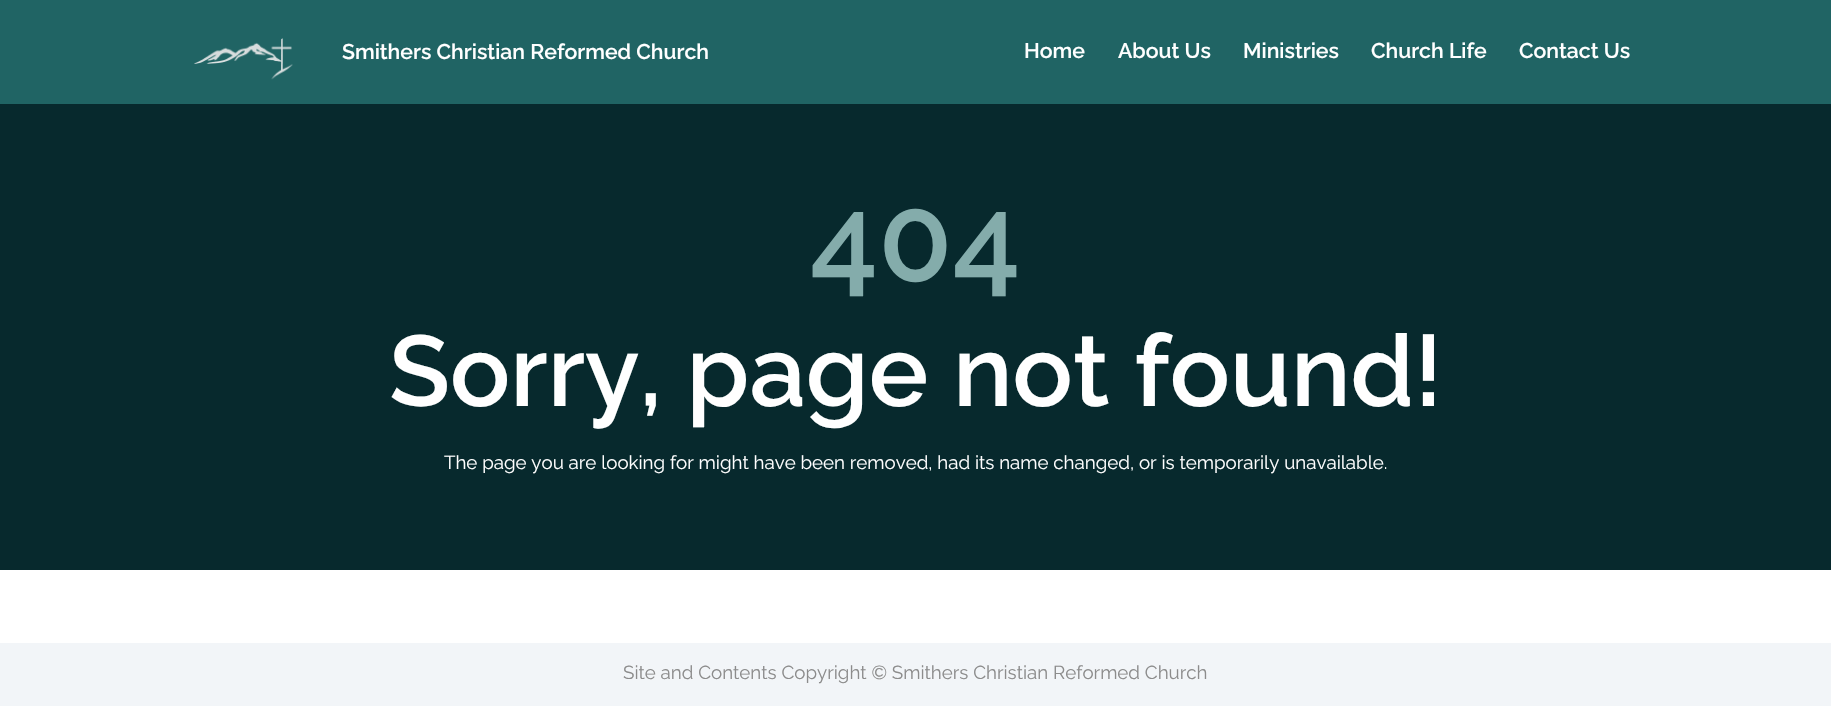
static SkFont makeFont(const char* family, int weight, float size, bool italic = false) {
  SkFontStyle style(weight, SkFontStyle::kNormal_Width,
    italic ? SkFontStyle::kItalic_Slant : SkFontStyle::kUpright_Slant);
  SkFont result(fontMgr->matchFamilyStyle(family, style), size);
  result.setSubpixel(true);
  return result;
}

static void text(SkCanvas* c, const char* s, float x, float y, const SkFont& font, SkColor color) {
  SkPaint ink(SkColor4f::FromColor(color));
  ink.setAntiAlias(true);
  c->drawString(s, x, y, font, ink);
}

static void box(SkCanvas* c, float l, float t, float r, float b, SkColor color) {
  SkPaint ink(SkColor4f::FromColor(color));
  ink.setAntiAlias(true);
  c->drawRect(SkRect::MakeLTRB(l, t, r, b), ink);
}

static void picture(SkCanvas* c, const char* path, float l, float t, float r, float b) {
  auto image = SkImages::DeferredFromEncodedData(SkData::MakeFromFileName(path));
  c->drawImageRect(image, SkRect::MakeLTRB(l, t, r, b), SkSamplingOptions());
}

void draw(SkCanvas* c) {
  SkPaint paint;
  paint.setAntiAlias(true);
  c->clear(0xffffffff);
  box(c, 0, 0, 1831, 104, 0xff206464);
  picture(c, "img_01.png", 194, 38, 293, 80);
  SkFont face1 = makeFont("Raleway", 600, 21.25f);
  text(c, "Smithers Christian Reformed Church", 342, 59, face1, 0xffffffff);
  text(c, "Home", 1024, 58, face1, 0xffffffff);
  text(c, "About Us", 1118, 58, face1, 0xffffffff);
  text(c, "Ministries", 1243, 58, face1, 0xffffffff);
  text(c, "Church Life", 1371, 58, face1, 0xffffffff);
  text(c, "Contact Us", 1519, 58, face1, 0xffffffff);
  box(c, 0, 104, 1831, 570, 0xff07292d);
  SkFont face2 = makeFont("Raleway", 600, 121);
  text(c, "404", 810, 281, face2, 0xff84acab);
  SkFont face3 = makeFont("Raleway", 600, 100);
  text(c, "Sorry, page not found!", 389, 406, face3, 0xffffffff);
  SkFont face4 = makeFont("Raleway", 400, 18.75f);
  text(c, "The page you are looking for might have been removed, had its name changed, or is temporarily unavailable.", 444, 469, face4, 0xffffffff);
  box(c, 0, 643, 1831, 706, 0xfff2f5f8);
  text(c, "Site and Contents Copyright © Smithers Christian Reformed Church", 623, 679, face4, 0xff8c8c8c);
}
